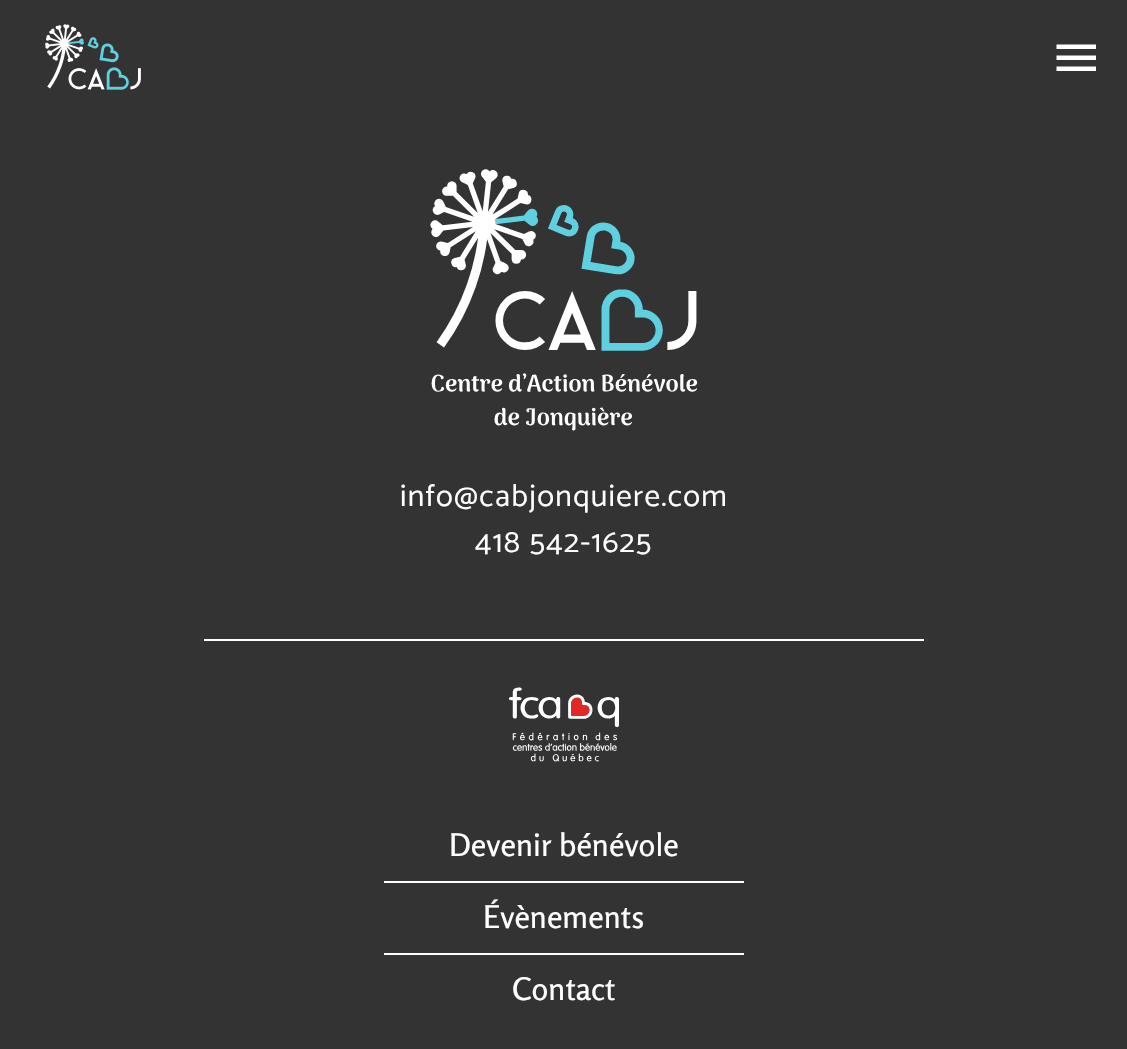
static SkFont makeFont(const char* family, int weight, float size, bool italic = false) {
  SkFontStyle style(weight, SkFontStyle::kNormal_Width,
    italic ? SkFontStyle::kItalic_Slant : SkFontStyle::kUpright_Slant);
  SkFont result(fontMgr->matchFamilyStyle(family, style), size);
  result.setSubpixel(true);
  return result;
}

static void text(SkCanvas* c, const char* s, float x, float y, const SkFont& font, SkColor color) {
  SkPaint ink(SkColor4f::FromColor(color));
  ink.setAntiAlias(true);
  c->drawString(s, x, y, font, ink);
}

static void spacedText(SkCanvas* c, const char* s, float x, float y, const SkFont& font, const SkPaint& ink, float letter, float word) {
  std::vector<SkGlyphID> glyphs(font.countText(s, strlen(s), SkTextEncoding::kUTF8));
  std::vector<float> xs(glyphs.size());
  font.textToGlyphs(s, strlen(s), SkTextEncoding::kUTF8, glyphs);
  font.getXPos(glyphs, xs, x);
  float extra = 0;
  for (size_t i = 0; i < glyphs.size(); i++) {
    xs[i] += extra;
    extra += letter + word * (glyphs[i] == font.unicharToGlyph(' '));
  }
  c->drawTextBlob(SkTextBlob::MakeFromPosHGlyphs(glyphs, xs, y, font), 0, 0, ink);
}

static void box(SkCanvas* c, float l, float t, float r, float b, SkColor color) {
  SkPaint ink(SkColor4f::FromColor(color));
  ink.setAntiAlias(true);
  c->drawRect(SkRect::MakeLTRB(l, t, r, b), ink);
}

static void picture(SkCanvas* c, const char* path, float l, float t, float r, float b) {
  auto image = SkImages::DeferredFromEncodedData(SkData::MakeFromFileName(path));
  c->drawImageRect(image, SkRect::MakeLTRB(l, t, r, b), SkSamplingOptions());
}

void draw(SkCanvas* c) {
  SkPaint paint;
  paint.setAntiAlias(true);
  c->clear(0xff333333);
  picture(c, "img_01.png", 45, 24, 141, 90);
  paint.setColor(0xffffffff);
  c->drawPath(SkPathBuilder().moveTo(1056.5f, 44.5f).lineTo(1096, 44.5f).lineTo(1096, 49).lineTo(1056.5f, 49).close().moveTo(1056.5f, 60).lineTo(1056.5f, 55.5f).lineTo(1096, 55.5f).lineTo(1096, 60).close().moveTo(1056.5f, 71).lineTo(1056.5f, 66.5f).lineTo(1096, 66.5f).lineTo(1096, 71).close().detach(), paint);
  picture(c, "img_02.png", 430, 169, 698, 431);
  SkFont face1 = makeFont("Catamaran", 400, 31.25f);
  spacedText(c, "info@cabjonquiere.com", 400, 506, face1, paint, 1.25f, 0);
  spacedText(c, "418 542-1625", 475, 552, face1, paint, 1.25f, 0);
  box(c, 204, 639, 924, 641, 0xffffffff);
  picture(c, "img_03.png", 509, 687, 619, 762);
  SkFont face2 = makeFont("Rosario", 500, 31.25f);
  text(c, "Devenir bénévole", 449, 856, face2, 0xffffffff);
  box(c, 384, 881, 744, 883, 0xffffffff);
  text(c, "Évènements", 483, 928, face2, 0xffffffff);
  box(c, 384, 953, 744, 955, 0xffffffff);
  text(c, "Contact", 512, 1000, face2, 0xffffffff);
}
